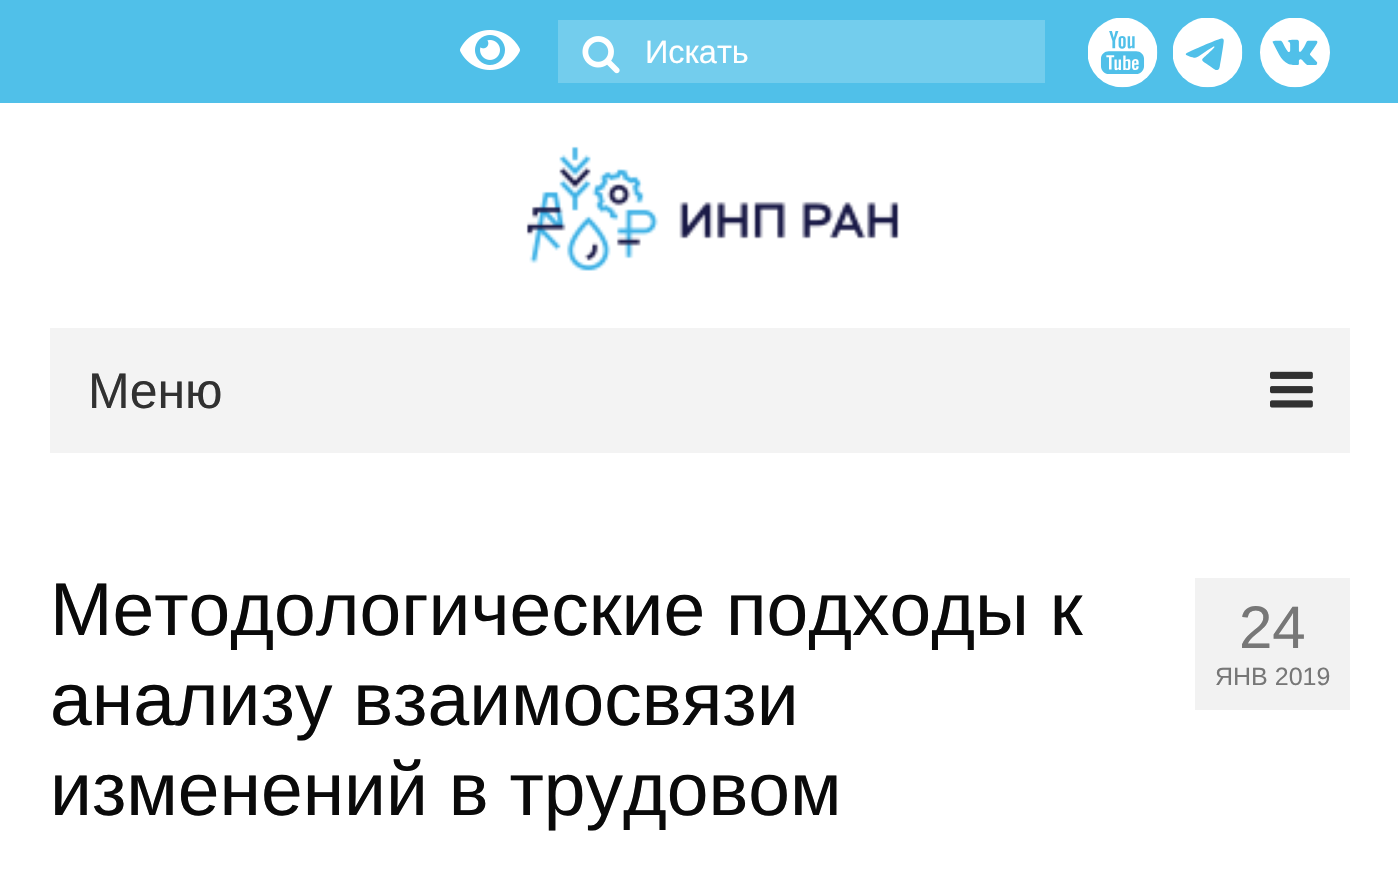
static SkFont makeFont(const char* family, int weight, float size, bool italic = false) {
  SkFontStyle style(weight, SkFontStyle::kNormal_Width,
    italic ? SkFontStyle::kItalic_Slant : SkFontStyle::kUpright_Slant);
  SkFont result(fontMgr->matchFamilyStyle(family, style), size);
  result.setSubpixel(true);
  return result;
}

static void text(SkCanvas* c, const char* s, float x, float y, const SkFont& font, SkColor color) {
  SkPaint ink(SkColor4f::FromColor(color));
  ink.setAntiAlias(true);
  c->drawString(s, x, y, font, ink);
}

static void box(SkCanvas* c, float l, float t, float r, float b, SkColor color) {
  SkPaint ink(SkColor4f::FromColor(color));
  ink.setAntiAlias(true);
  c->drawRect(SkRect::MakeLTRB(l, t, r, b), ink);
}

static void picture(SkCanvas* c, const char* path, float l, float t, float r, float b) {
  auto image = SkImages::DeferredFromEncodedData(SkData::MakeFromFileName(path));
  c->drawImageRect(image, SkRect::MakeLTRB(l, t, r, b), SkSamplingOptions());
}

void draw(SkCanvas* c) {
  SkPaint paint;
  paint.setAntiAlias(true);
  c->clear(0xffffffff);
  box(c, 0, 0, 1398, 103, 0xff50c0e9);
  picture(c, "img_01.png", 460, 30, 520, 70);
  box(c, 558, 20, 1045, 83, 0xff73cded);
  picture(c, "img_02.png", 582, 36, 620, 74);
  SkFont face1 = makeFont("Liberation Sans", 400, 32.5f);
  text(c, "Искать", 645, 63, face1, 0xffffffff);
  picture(c, "img_03.png", 1088, 18, 1158, 88);
  picture(c, "img_04.png", 1173, 18, 1243, 88);
  picture(c, "img_05.png", 1260, 18, 1330, 88);
  picture(c, "img_06.png", 526, 146, 899, 271);
  box(c, 50, 328, 1350, 453, 0xfff3f3f3);
  SkFont face2 = makeFont("Liberation Sans", 400, 50);
  text(c, "Меню", 88, 408, face2, 0xff313131);
  picture(c, "img_07.png", 1270, 371, 1313, 408);
  SkFont face3 = makeFont("Liberation Sans", 400, 75);
  text(c, "Методологические подходы к", 50, 635, face3, 0xff0a0a0a);
  text(c, "анализу взаимосвязи", 50, 725, face3, 0xff0a0a0a);
  text(c, "изменений в трудовом", 50, 815, face3, 0xff0a0a0a);
  box(c, 1195, 578, 1350, 710, 0xfff2f2f2);
  SkFont face4 = makeFont("Liberation Sans", 400, 60);
  text(c, "24", 1239, 648, face4, 0xff777777);
  SkFont face5 = makeFont("Liberation Sans", 400, 25);
  text(c, "ЯНВ 2019", 1215, 685, face5, 0xff777777);
}
